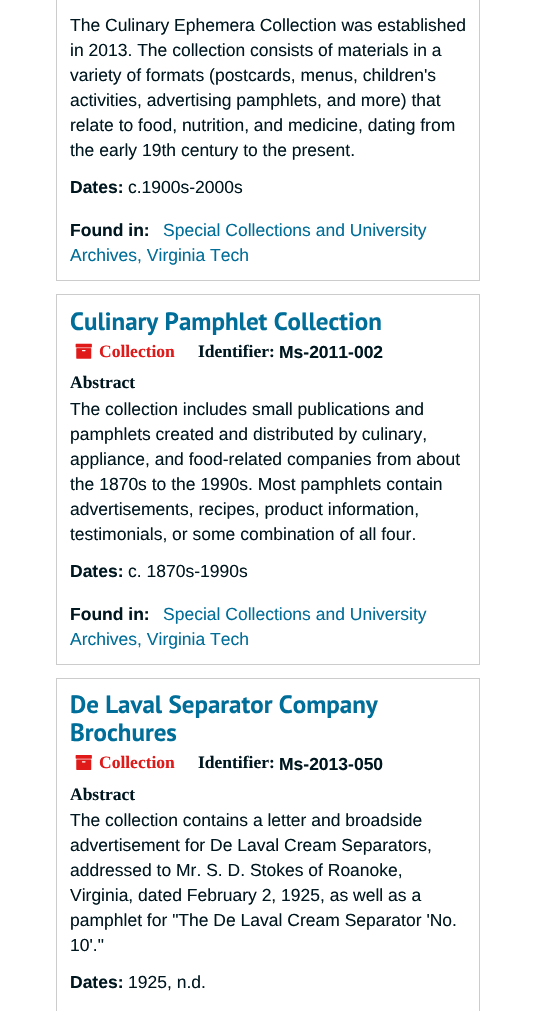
static SkFont makeFont(const char* family, int weight, float size, bool italic = false) {
  SkFontStyle style(weight, SkFontStyle::kNormal_Width,
    italic ? SkFontStyle::kItalic_Slant : SkFontStyle::kUpright_Slant);
  SkFont result(fontMgr->matchFamilyStyle(family, style), size);
  result.setSubpixel(true);
  return result;
}

static void text(SkCanvas* c, const char* s, float x, float y, const SkFont& font, SkColor color) {
  SkPaint ink(SkColor4f::FromColor(color));
  ink.setAntiAlias(true);
  c->drawString(s, x, y, font, ink);
}

static void picture(SkCanvas* c, const char* path, float l, float t, float r, float b) {
  auto image = SkImages::DeferredFromEncodedData(SkData::MakeFromFileName(path));
  c->drawImageRect(image, SkRect::MakeLTRB(l, t, r, b), SkSamplingOptions());
}

void draw(SkCanvas* c) {
  SkPaint paint;
  paint.setAntiAlias(true);
  c->clear(0xffffffff);
  paint.setStyle(SkPaint::kStroke_Style);
  paint.setStrokeWidth(1);
  paint.setColor(0xffcccccc);
  c->drawRect(SkRect::MakeLTRB(56.5f, -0.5f, 479.5f, 280.5f), paint);
  SkFont face1 = makeFont("Liberation Sans", 400, 17.5f);
  text(c, "The Culinary Ephemera Collection was established", 70, 31, face1, 0xff00171f);
  text(c, "in 2013. The collection consists of materials in a", 70, 56, face1, 0xff00171f);
  text(c, "variety of formats (postcards, menus, children's", 70, 81, face1, 0xff00171f);
  text(c, "activities, advertising pamphlets, and more) that", 70, 106, face1, 0xff00171f);
  text(c, "relate to food, nutrition, and medicine, dating from", 70, 131, face1, 0xff00171f);
  text(c, "the early 19th century to the present.", 70, 156, face1, 0xff00171f);
  SkFont face2 = makeFont("Liberation Sans", 700, 17.5f);
  text(c, "Dates:", 70, 193, face2, 0xff00171f);
  text(c, "c.1900s-2000s", 128, 193, face1, 0xff00171f);
  text(c, "Found in:", 70, 236, face2, 0xff00171f);
  text(c, "Special Collections and University", 163, 236, face1, 0xff006e99);
  text(c, "Archives, Virginia Tech", 70, 261, face1, 0xff006e99);
  c->drawRect(SkRect::MakeLTRB(56.5f, 294.5f, 479.5f, 664.5f), paint);
  SkFont face3 = makeFont("PT Sans", 700, 25);
  text(c, "Culinary Pamphlet Collection", 70, 330, face3, 0xff006e99);
  picture(c, "img_01.png", 75, 343, 92, 359);
  SkFont face4 = makeFont("Liberation Serif", 700, 17.5f);
  text(c, "Collection", 99, 357, face4, 0xffe01919);
  text(c, "Identifier:", 198, 357, face4, 0xff00171f);
  text(c, "Ms-2011-002", 279, 358, face2, 0xff00171f);
  text(c, "Abstract", 70, 388, face4, 0xff00171f);
  text(c, "The collection includes small publications and", 70, 415, face1, 0xff00171f);
  text(c, "pamphlets created and distributed by culinary,", 70, 440, face1, 0xff00171f);
  text(c, "appliance, and food-related companies from about", 70, 465, face1, 0xff00171f);
  text(c, "the 1870s to the 1990s. Most pamphlets contain", 70, 490, face1, 0xff00171f);
  text(c, "advertisements, recipes, product information,", 70, 515, face1, 0xff00171f);
  text(c, "testimonials, or some combination of all four.", 70, 540, face1, 0xff00171f);
  text(c, "Dates:", 70, 577, face2, 0xff00171f);
  text(c, "c. 1870s-1990s", 128, 577, face1, 0xff00171f);
  text(c, "Found in:", 70, 620, face2, 0xff00171f);
  text(c, "Special Collections and University", 163, 620, face1, 0xff006e99);
  text(c, "Archives, Virginia Tech", 70, 645, face1, 0xff006e99);
  c->drawRect(SkRect::MakeLTRB(56.5f, 678.5f, 479.5f, 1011.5f), paint);
  text(c, "De Laval Separator Company", 70, 713, face3, 0xff006e99);
  text(c, "Brochures", 70, 741, face3, 0xff006e99);
  picture(c, "img_02.png", 75, 755, 92, 770);
  text(c, "Collection", 99, 768, face4, 0xffe01919);
  text(c, "Identifier:", 198, 768, face4, 0xff00171f);
  text(c, "Ms-2013-050", 279, 770, face2, 0xff00171f);
  text(c, "Abstract", 70, 800, face4, 0xff00171f);
  text(c, "The collection contains a letter and broadside", 70, 826, face1, 0xff00171f);
  text(c, "advertisement for De Laval Cream Separators,", 70, 851, face1, 0xff00171f);
  text(c, "addressed to Mr. S. D. Stokes of Roanoke,", 70, 876, face1, 0xff00171f);
  text(c, "Virginia, dated February 2, 1925, as well as a", 70, 901, face1, 0xff00171f);
  text(c, "pamphlet for \"The De Laval Cream Separator 'No.", 70, 926, face1, 0xff00171f);
  text(c, "10'.\"", 70, 951, face1, 0xff00171f);
  text(c, "Dates:", 70, 988, face2, 0xff00171f);
  text(c, "1925, n.d.", 128, 988, face1, 0xff00171f);
}
